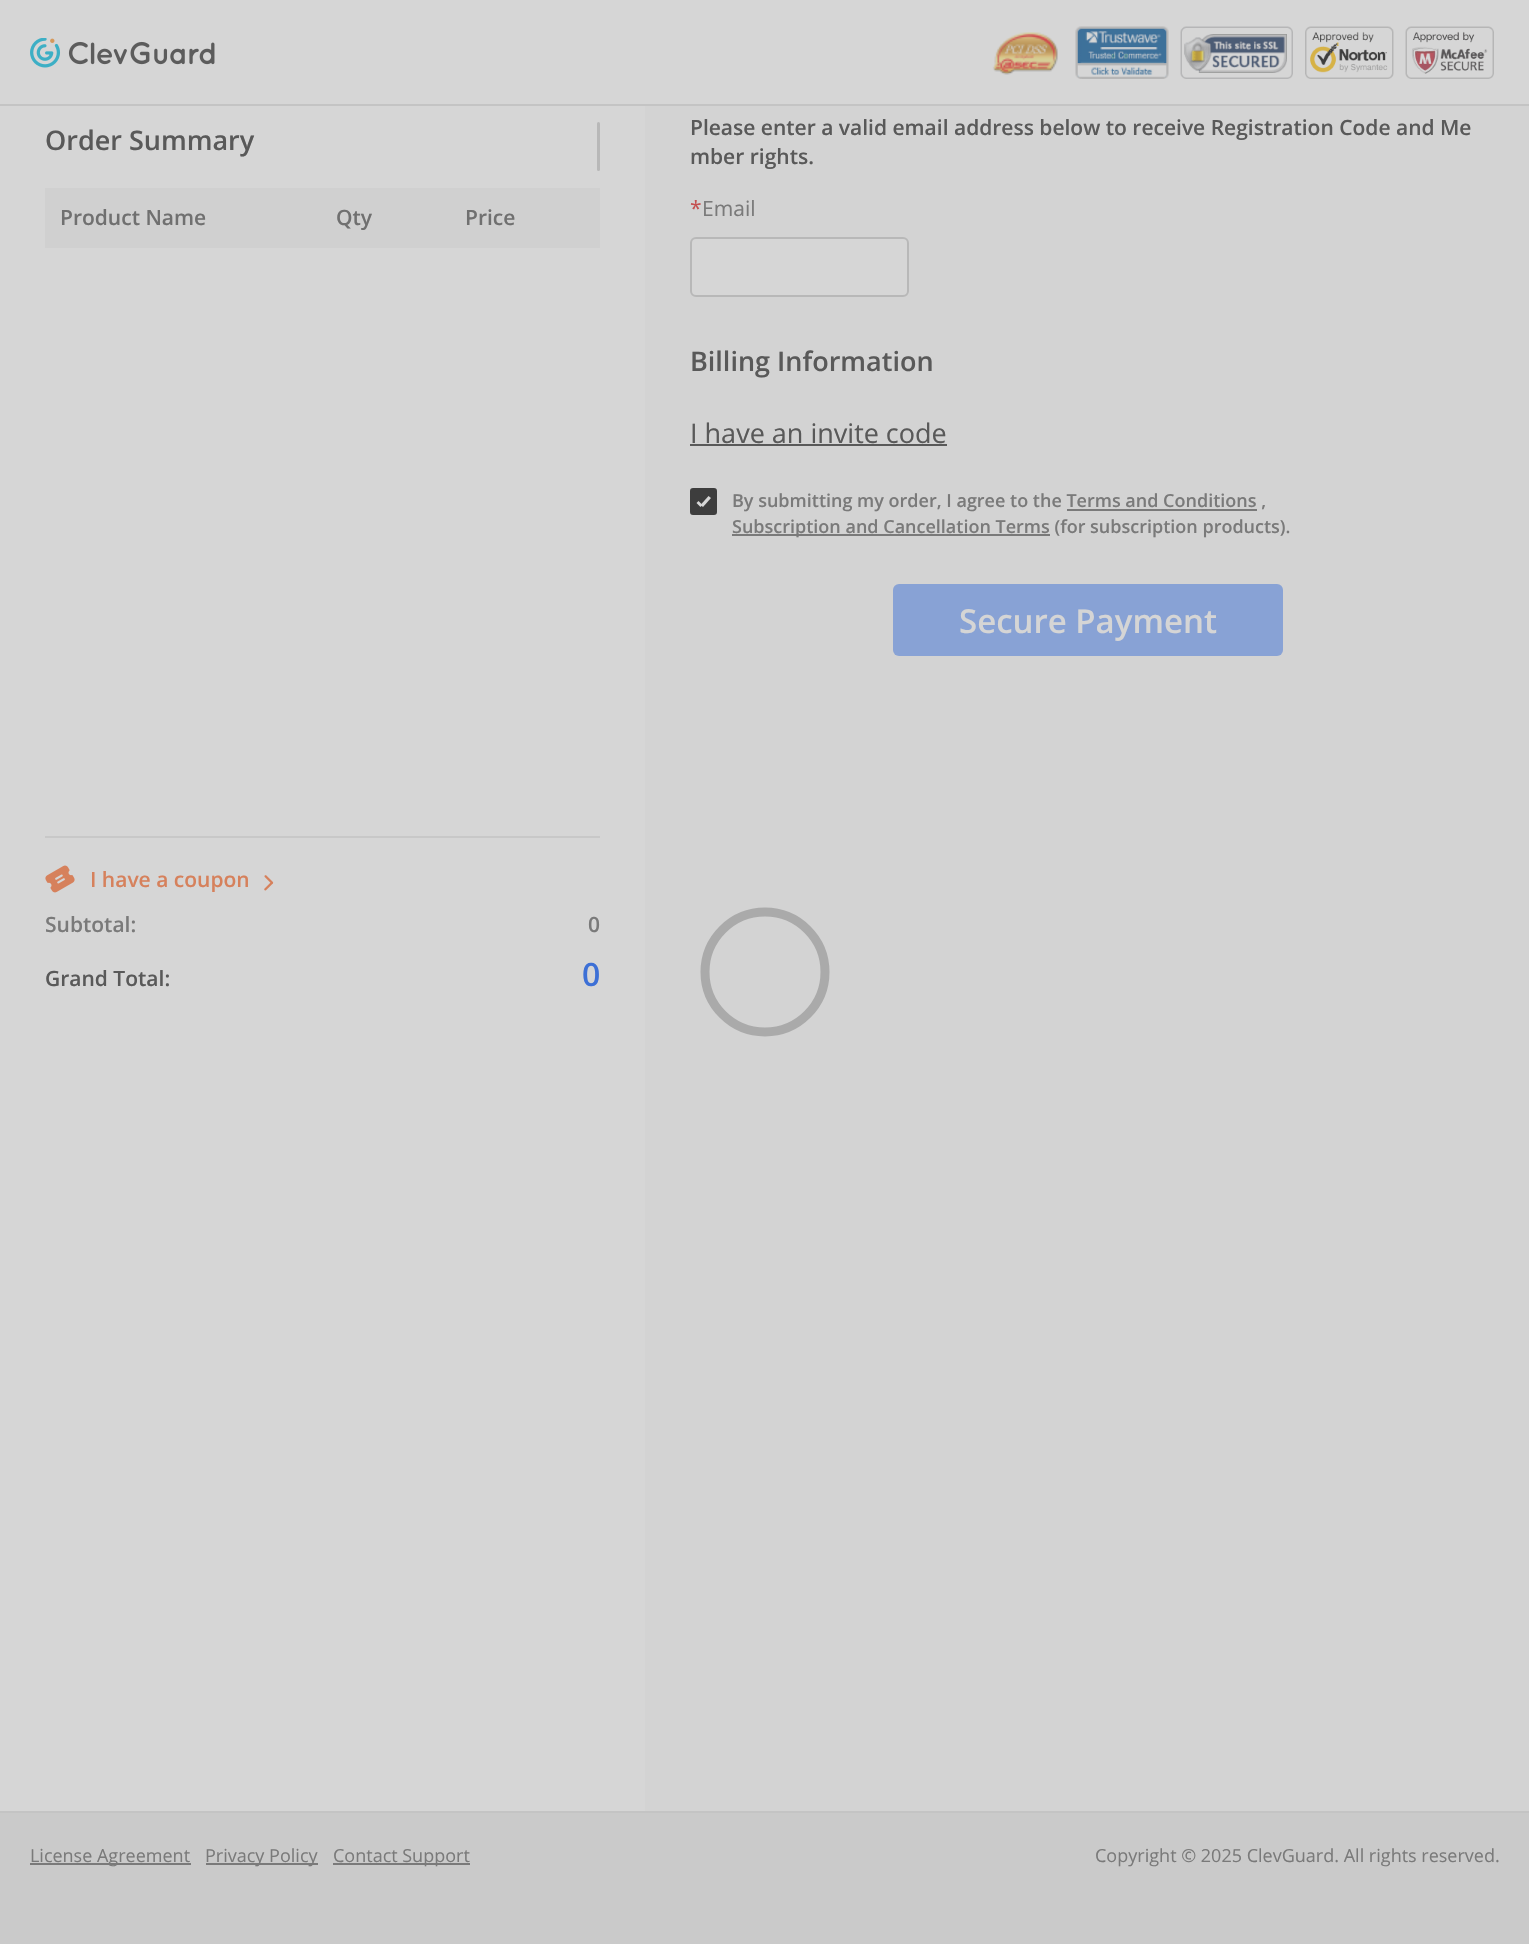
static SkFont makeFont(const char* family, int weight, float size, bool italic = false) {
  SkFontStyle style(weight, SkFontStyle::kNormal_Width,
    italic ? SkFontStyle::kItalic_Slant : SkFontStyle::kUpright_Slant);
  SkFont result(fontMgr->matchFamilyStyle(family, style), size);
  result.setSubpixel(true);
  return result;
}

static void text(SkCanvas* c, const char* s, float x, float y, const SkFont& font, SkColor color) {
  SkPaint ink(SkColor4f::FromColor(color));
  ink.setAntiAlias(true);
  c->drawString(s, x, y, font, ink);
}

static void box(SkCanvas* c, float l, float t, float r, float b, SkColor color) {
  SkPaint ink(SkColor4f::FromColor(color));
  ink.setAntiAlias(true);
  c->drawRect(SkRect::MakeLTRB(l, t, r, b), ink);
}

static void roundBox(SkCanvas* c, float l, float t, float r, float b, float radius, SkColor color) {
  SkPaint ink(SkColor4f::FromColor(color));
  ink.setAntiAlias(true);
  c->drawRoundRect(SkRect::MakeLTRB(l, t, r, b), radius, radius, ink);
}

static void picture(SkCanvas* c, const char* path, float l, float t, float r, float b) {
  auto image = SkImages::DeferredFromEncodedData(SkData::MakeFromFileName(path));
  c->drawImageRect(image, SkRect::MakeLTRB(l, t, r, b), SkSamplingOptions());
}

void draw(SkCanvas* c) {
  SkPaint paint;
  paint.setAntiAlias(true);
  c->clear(0xffcacaca);
  box(c, 0, 0, 1529, 104, 0xffd6d6d6);
  box(c, 0, 104, 1529, 106, 0xffc4c4c4);
  picture(c, "img_01.png", 30, 38, 215, 68);
  picture(c, "img_02.png", 992, 32, 1058, 75);
  picture(c, "img_03.png", 1075, 26, 1169, 79);
  picture(c, "img_04.png", 1180, 26, 1293, 79);
  picture(c, "img_05.png", 1305, 26, 1394, 79);
  picture(c, "img_06.png", 1405, 26, 1494, 79);
  box(c, 645, 106, 1529, 1811, 0xffd3d3d3);
  box(c, 0, 106, 645, 1811, 0xffd6d6d6);
  SkFont face1 = makeFont("Open Sans", 600, 21);
  text(c, "Please enter a valid email address below to receive Registration Code and Me", 690, 135, face1, 0xff595959);
  text(c, "mber rights.", 690, 164, face1, 0xff595959);
  SkFont face2 = makeFont("Open Sans", 400, 21);
  text(c, "*", 690, 216, face2, 0xffc45050);
  text(c, "Email", 702, 216, face2, 0xff7a7a7a);
  paint.setColor(0xffd6d6d6);
  c->drawRoundRect(SkRect::MakeLTRB(691, 238, 908, 296), 5, 5, paint);
  paint.setStyle(SkPaint::kStroke_Style);
  paint.setStrokeWidth(2);
  paint.setColor(0xffb8b8b8);
  c->drawRoundRect(SkRect::MakeLTRB(691, 238, 908, 296), 5, 5, paint);
  SkFont face3 = makeFont("Open Sans", 600, 27);
  text(c, "Billing Information", 690, 371, face3, 0xff595959);
  SkFont face4 = makeFont("Open Sans", 400, 27);
  text(c, "I have an invite code", 690, 443, face4, 0xff595959);
  box(c, 690, 444, 947, 446, 0xff595959);
  paint.setStyle(SkPaint::kFill_Style);
  paint.setColor(0xff3d3d3d);
  c->drawRoundRect(SkRect::MakeLTRB(691, 489, 716, 514), 2, 2, paint);
  paint.setStyle(SkPaint::kStroke_Style);
  c->drawRoundRect(SkRect::MakeLTRB(691, 489, 716, 514), 2, 2, paint);
  paint.setStyle(SkPaint::kFill_Style);
  paint.setColor(0xffd6d6d6);
  c->drawPath(SkPathBuilder().moveTo(700.5f, 505).lineTo(708.5f, 496).lineTo(711, 498).lineTo(703, 507).close().detach(), paint);
  c->drawPath(SkPathBuilder().moveTo(696.5f, 503).lineTo(698.5f, 501).lineTo(702.5f, 505).lineTo(700.5f, 507).close().detach(), paint);
  SkFont face5 = makeFont("Open Sans", 600, 18);
  text(c, "By submitting my order, I agree to the Terms and Conditions ,", 732, 507, face5, 0xff7a7a7a);
  box(c, 1067, 509, 1257, 511, 0xff7a7a7a);
  box(c, 732, 534, 1050, 536, 0xff7a7a7a);
  text(c, "Subscription and Cancellation Terms (for subscription products).", 732, 533, face5, 0xff7a7a7a);
  roundBox(c, 893, 584, 1283, 656, 6, 0xff88a2d5);
  SkFont face6 = makeFont("Open Sans", 600, 33);
  text(c, "Secure Payment", 959, 633, face6, 0xffd5d5d5);
  text(c, "Order Summary", 45, 150, face3, 0xff595959);
  roundBox(c, 597, 122, 600, 171, 1.5f, 0xffb8b8b8);
  box(c, 45, 188, 600, 248, 0xffd0d0d0);
  text(c, "Product Name", 60, 225, face1, 0xff707070);
  text(c, "Qty", 336, 225, face1, 0xff707070);
  text(c, "Price", 465, 225, face1, 0xff707070);
  box(c, 45, 836, 600, 838, 0xffc8c8c8);
  picture(c, "img_07.png", 45, 865, 75, 893);
  text(c, "I have a coupon", 90, 887, face1, 0xffd6815c);
  picture(c, "img_08.png", 264, 875, 274, 891);
  text(c, "Subtotal:", 45, 932, face1, 0xff7a7a7a);
  text(c, "0", 588, 932, face1, 0xff7a7a7a);
  text(c, "Grand Total:", 45, 986, face1, 0xff595959);
  SkFont face7 = makeFont("Open Sans", 600, 32);
  text(c, "0", 582, 986, face7, 0xff3d70d6);
  box(c, 0, 1811, 1529, 1813, 0xffc4c4c4);
  box(c, 30, 1863, 191, 1865, 0xff7a7a7a);
  SkFont face8 = makeFont("Open Sans", 400, 18);
  text(c, "License Agreement", 30, 1862, face8, 0xff7a7a7a);
  box(c, 206, 1863, 318, 1865, 0xff7a7a7a);
  text(c, "Privacy Policy", 205, 1862, face8, 0xff7a7a7a);
  box(c, 333, 1863, 470, 1865, 0xff7a7a7a);
  text(c, "Contact Support", 333, 1862, face8, 0xff7a7a7a);
  text(c, "Copyright © 2025 ClevGuard. All rights reserved.", 1095, 1862, face8, 0xff7a7a7a);
  paint.setStyle(SkPaint::kStroke_Style);
  paint.setStrokeWidth(9);
  paint.setColor(0xffaaaaaa);
  c->drawCircle(765, 972, 60, paint);
}
